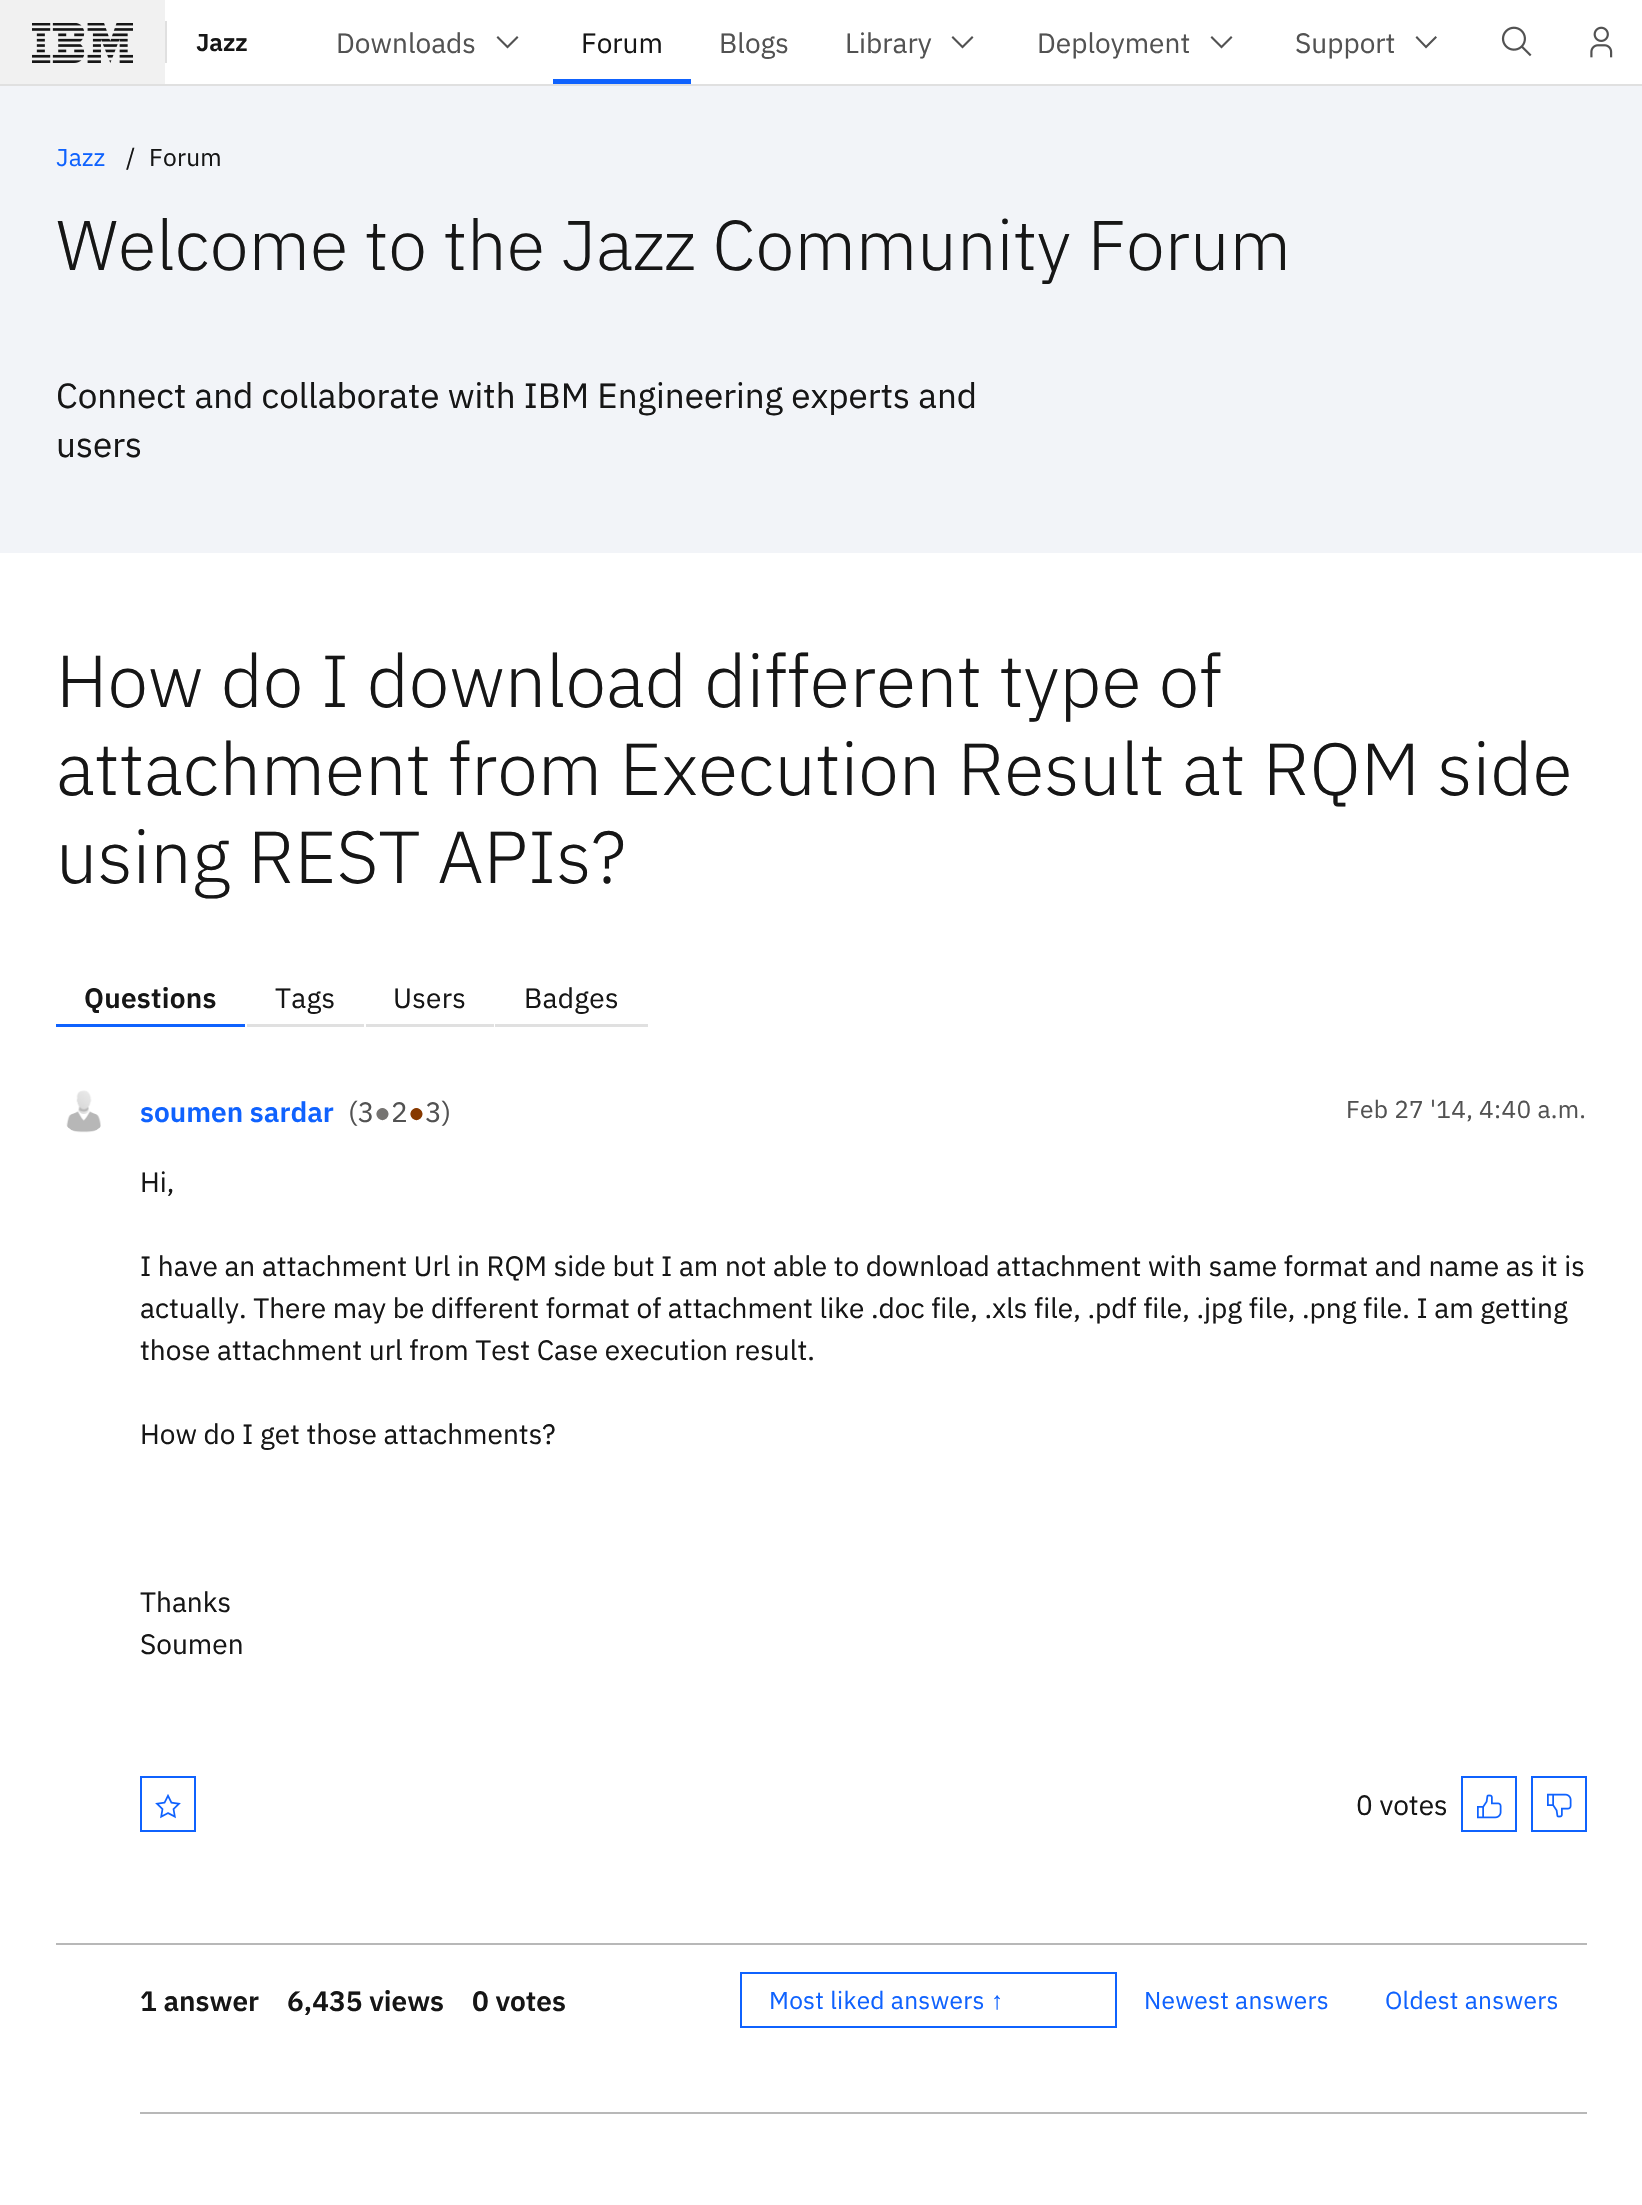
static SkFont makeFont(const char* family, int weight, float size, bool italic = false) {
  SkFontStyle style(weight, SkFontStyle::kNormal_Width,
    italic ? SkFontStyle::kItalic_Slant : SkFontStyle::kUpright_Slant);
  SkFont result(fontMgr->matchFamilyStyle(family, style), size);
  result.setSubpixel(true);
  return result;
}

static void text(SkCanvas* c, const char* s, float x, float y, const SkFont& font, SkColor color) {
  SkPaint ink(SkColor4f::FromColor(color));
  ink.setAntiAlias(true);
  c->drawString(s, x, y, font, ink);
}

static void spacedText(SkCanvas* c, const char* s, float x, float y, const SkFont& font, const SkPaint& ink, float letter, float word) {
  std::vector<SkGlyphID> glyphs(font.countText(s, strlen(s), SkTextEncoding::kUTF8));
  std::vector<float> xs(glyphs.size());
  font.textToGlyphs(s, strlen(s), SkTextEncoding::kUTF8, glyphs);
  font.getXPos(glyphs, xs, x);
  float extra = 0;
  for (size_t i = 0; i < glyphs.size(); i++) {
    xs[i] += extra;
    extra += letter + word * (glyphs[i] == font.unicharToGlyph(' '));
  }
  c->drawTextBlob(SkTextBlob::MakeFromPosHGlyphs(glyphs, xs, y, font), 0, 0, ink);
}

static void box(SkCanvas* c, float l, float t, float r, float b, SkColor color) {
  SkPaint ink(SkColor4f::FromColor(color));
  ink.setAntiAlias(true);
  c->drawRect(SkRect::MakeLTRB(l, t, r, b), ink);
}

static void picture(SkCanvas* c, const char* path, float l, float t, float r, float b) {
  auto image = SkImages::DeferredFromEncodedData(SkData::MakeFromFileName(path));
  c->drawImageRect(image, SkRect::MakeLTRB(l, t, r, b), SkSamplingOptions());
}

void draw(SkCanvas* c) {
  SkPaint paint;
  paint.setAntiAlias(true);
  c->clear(0xffffffff);
  box(c, 0, 0, 165, 84, 0xfff1f1f1);
  picture(c, "img_01.png", 32, 23, 133, 63);
  box(c, 165, 21, 167, 63, 0xffe0e0e0);
  SkFont face1 = makeFont("IBM Plex Sans", 600, 24.5f);
  text(c, "Jazz", 196, 51, face1, 0xff161616);
  SkFont face2 = makeFont("IBM Plex Sans", 400, 28);
  text(c, "Downloads", 336, 53, face2, 0xff525252);
  paint.setColor(0xff525252);
  c->drawPath(SkPathBuilder().moveTo(507.5f, 48.5f).lineTo(496.5f, 37.5f).lineTo(498, 36).lineTo(507.5f, 45.5f).lineTo(517, 36).lineTo(518.5f, 37.5f).close().detach(), paint);
  text(c, "Forum", 581, 53, face2, 0xff161616);
  box(c, 553, 79, 691, 84, 0xff0f62fe);
  text(c, "Blogs", 719, 53, face2, 0xff525252);
  text(c, "Library", 845, 53, face2, 0xff525252);
  c->drawPath(SkPathBuilder().moveTo(962.5f, 48.5f).lineTo(951.5f, 37.5f).lineTo(953, 36).lineTo(962.5f, 45.5f).lineTo(972, 36).lineTo(973.5f, 37.5f).close().detach(), paint);
  text(c, "Deployment", 1037, 53, face2, 0xff525252);
  c->drawPath(SkPathBuilder().moveTo(1221.5f, 48.5f).lineTo(1210.5f, 37.5f).lineTo(1212, 36).lineTo(1221.5f, 45.5f).lineTo(1231, 36).lineTo(1232.5f, 37.5f).close().detach(), paint);
  text(c, "Support", 1295, 53, face2, 0xff525252);
  c->drawPath(SkPathBuilder().moveTo(1426, 48.5f).lineTo(1415.5f, 37.5f).lineTo(1417, 36).lineTo(1426, 45.5f).lineTo(1435.5f, 36).lineTo(1437, 37.5f).close().detach(), paint);
  picture(c, "img_02.png", 1501, 26, 1532, 57);
  picture(c, "img_03.png", 1590, 26, 1613, 58);
  box(c, 0, 84, 1642, 86, 0xffe0e0e0);
  box(c, 0, 86, 1642, 553, 0xfff2f4f8);
  SkFont face3 = makeFont("IBM Plex Sans", 400, 24.5f);
  paint.setColor(0xff0f62fe);
  spacedText(c, "Jazz", 56, 166, face3, paint, 0.25f, 0);
  paint.setColor(0xff161616);
  spacedText(c, "/", 126, 166, face3, paint, 0.25f, 0);
  spacedText(c, "Forum", 149, 166, face3, paint, 0.25f, 0);
  SkFont face4 = makeFont("IBM Plex Sans", 300, 70.25f);
  text(c, "Welcome to the Jazz Community Forum", 56, 270, face4, 0xff161616);
  SkFont face5 = makeFont("IBM Plex Sans", 400, 35);
  text(c, "Connect and collaborate with IBM Engineering experts and", 56, 408, face5, 0xff161616);
  text(c, "users", 56, 457, face5, 0xff161616);
  SkFont face6 = makeFont("IBM Plex Sans", 300, 73.5f);
  text(c, "How do I download different type of", 56, 707, face6, 0xff161616);
  text(c, "attachment from Execution Result at RQM side", 56, 795, face6, 0xff161616);
  text(c, "using REST APIs?", 56, 883, face6, 0xff161616);
  box(c, 56, 1024, 245, 1027, 0xff0f62fe);
  SkFont face7 = makeFont("IBM Plex Sans", 600, 28);
  spacedText(c, "Questions", 84, 1008, face7, paint, 0.25f, 0);
  box(c, 247, 1024, 364, 1027, 0xffe0e0e0);
  spacedText(c, "Tags", 275, 1008, face2, paint, 0.25f, 0);
  box(c, 366, 1024, 494, 1027, 0xffe0e0e0);
  spacedText(c, "Users", 393, 1008, face2, paint, 0.25f, 0);
  box(c, 495, 1024, 648, 1027, 0xffe0e0e0);
  spacedText(c, "Badges", 524, 1008, face2, paint, 0.25f, 0);
  picture(c, "img_04.png", 66, 1090, 101, 1133);
  text(c, "soumen sardar", 140, 1122, face7, 0xff0f62fe);
  text(c, "(3", 348, 1122, face2, 0xff525252);
  SkFont face8 = makeFont("Liberation Sans", 400, 28);
  text(c, "●", 374, 1122, face8, 0xff767472);
  text(c, "2", 391, 1122, face2, 0xff525252);
  text(c, "●", 408, 1122, face8, 0xff873900);
  text(c, "3)", 425, 1122, face2, 0xff525252);
  paint.setColor(0xff525252);
  spacedText(c, "Feb 27 '14, 4:40 a.m.", 1346, 1118, face3, paint, 0.25f, 0);
  text(c, "Hi,", 140, 1192, face2, 0xff161616);
  text(c, "I have an attachment Url in RQM side but I am not able to download attachment with same format and name as it is", 140, 1276, face2, 0xff161616);
  text(c, "actually. There may be different format of attachment like .doc file, .xls file, .pdf file, .jpg file, .png file. I am getting", 140, 1318, face2, 0xff161616);
  text(c, "those attachment url from Test Case execution result.", 140, 1360, face2, 0xff161616);
  text(c, "How do I get those attachments?", 140, 1444, face2, 0xff161616);
  text(c, "Thanks", 140, 1612, face2, 0xff161616);
  text(c, "Soumen", 140, 1654, face2, 0xff161616);
  paint.setStyle(SkPaint::kStroke_Style);
  paint.setStrokeWidth(2);
  paint.setColor(0xff0f62fe);
  c->drawRect(SkRect::MakeLTRB(141, 1777, 195, 1831), paint);
  picture(c, "img_05.png", 155, 1794, 181, 1819);
  text(c, "0 votes", 1356, 1815, face2, 0xff161616);
  c->drawRect(SkRect::MakeLTRB(1462, 1777, 1516, 1831), paint);
  picture(c, "img_06.png", 1477, 1794, 1502, 1819);
  c->drawRect(SkRect::MakeLTRB(1532, 1777, 1586, 1831), paint);
  picture(c, "img_07.png", 1547, 1793, 1572, 1818);
  box(c, 56, 1943, 1587, 1945, 0xffb8b8b8);
  text(c, "1 answer", 140, 2011, face7, 0xff161616);
  text(c, "6,435 views", 287, 2011, face7, 0xff161616);
  text(c, "0 votes", 472, 2011, face7, 0xff161616);
  c->drawRect(SkRect::MakeLTRB(741, 1973, 1116, 2027), paint);
  paint.setStyle(SkPaint::kFill_Style);
  spacedText(c, "Most liked answers", 769, 2009, face3, paint, 0.25f, 0);
  SkFont face9 = makeFont("Liberation Sans", 400, 24.5f);
  spacedText(c, "↑", 991, 2009, face9, paint, 0.25f, 0);
  spacedText(c, "Newest answers", 1144, 2009, face3, paint, 0.25f, 0);
  spacedText(c, "Oldest answers", 1385, 2009, face3, paint, 0.25f, 0);
  box(c, 140, 2112, 1587, 2114, 0xffb8b8b8);
}
